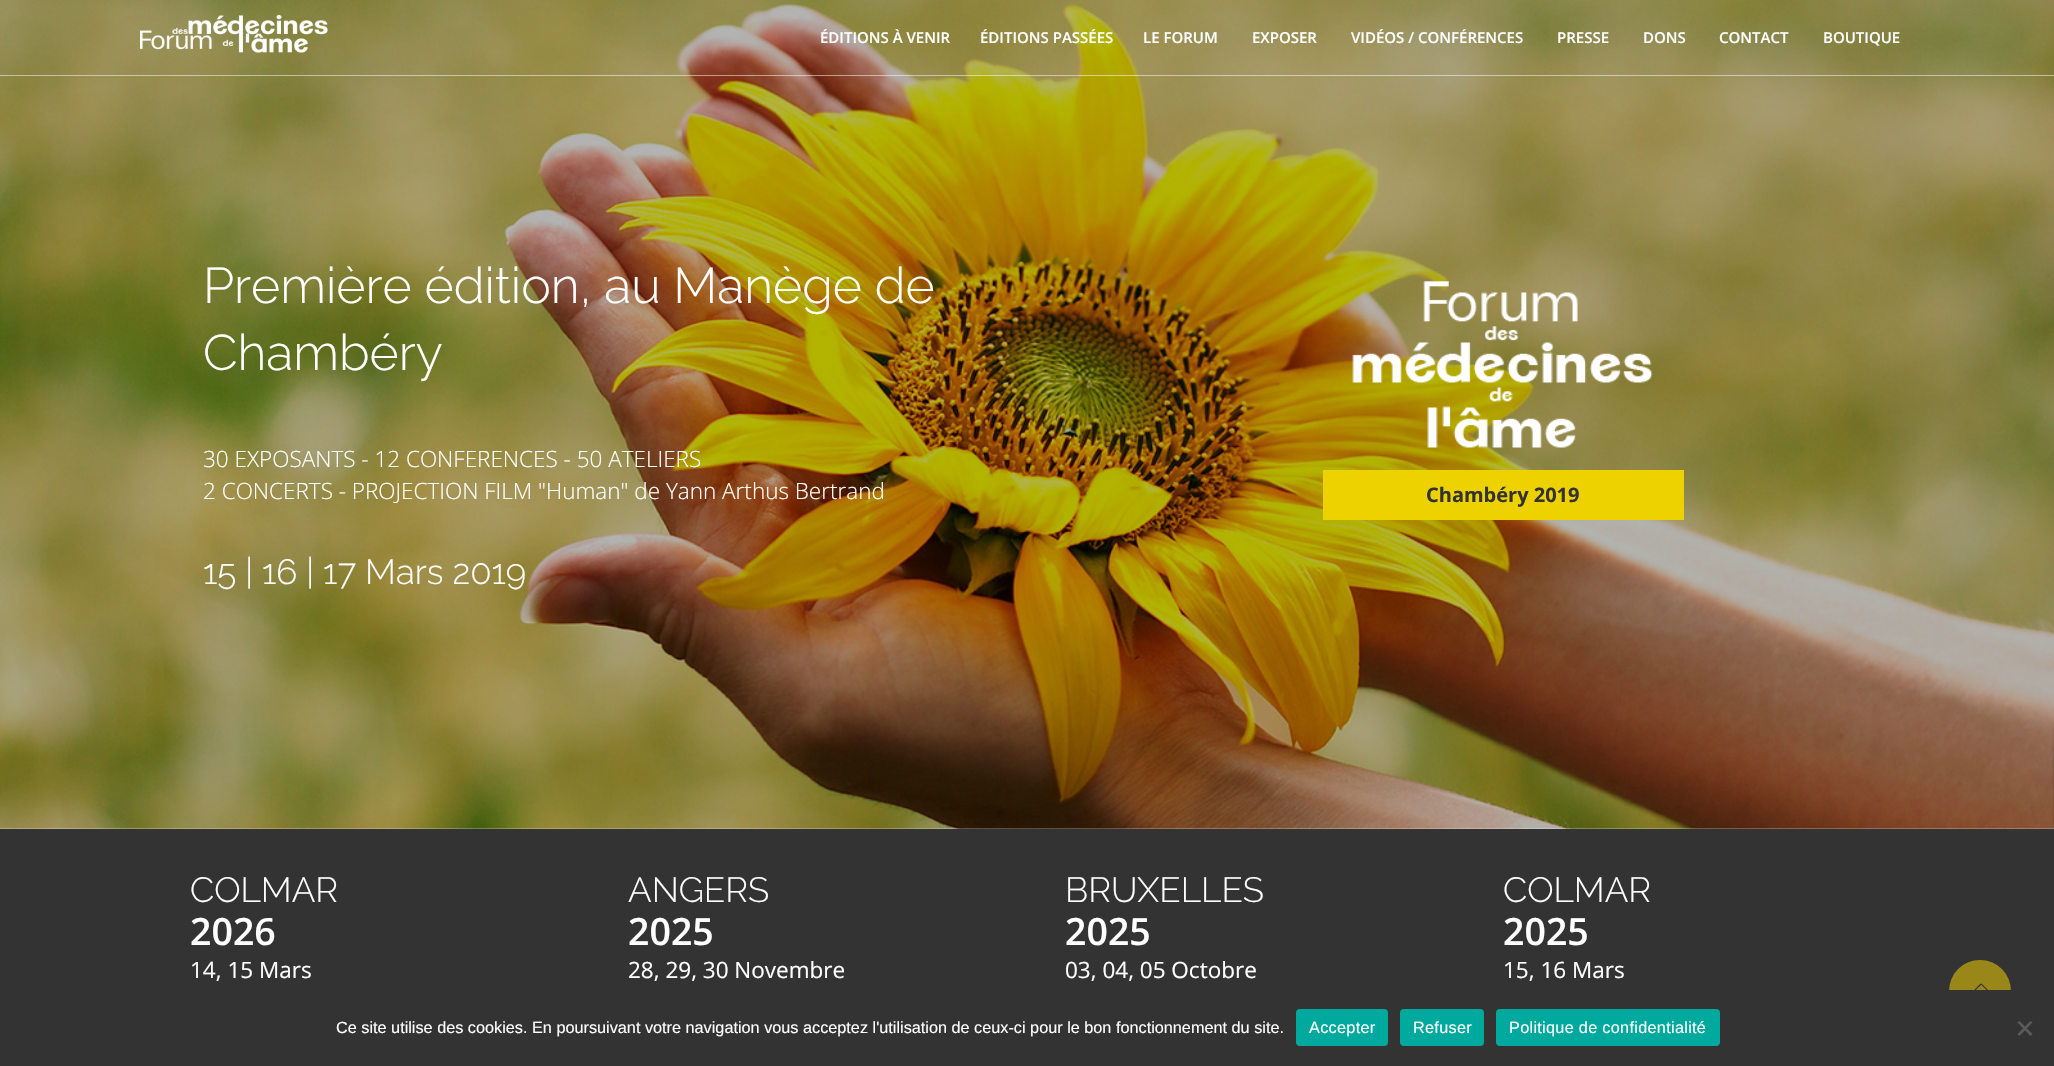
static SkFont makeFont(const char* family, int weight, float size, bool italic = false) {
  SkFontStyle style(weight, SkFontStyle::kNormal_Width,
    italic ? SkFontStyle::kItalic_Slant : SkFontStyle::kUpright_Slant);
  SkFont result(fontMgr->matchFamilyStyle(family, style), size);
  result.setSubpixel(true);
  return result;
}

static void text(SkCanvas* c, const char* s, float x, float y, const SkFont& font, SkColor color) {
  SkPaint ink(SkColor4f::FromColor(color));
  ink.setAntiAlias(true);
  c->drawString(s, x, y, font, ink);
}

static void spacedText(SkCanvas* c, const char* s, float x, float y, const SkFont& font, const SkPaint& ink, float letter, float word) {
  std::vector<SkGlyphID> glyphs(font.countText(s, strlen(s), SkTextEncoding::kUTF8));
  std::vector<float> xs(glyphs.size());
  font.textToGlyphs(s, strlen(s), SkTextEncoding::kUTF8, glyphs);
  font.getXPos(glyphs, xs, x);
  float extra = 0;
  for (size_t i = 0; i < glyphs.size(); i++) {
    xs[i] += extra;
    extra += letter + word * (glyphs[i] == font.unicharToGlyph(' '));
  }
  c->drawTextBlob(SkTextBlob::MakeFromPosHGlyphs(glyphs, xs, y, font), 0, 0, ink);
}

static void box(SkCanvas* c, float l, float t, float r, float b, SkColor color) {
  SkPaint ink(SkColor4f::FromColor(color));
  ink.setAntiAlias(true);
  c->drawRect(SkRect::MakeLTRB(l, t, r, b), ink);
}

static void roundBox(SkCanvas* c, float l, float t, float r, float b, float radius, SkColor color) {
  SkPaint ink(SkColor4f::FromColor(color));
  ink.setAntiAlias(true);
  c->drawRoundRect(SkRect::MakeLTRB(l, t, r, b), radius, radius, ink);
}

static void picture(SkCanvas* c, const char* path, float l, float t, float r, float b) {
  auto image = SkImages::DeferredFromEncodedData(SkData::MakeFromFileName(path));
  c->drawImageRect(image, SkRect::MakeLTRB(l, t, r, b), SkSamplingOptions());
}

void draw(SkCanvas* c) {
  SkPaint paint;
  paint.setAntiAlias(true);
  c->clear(0xffffffff);
  picture(c, "img_01.png", 0, 0, 2054, 829);
  box(c, 0, 75, 2054, 76, 0x80ffffff);
  picture(c, "img_02.png", 140, 15, 328, 53);
  SkFont face1 = makeFont("Open Sans", 600, 15);
  text(c, "ÉDITIONS À VENIR", 820, 43, face1, 0xffffffff);
  text(c, "ÉDITIONS PASSÉES", 980, 43, face1, 0xffffffff);
  text(c, "LE FORUM", 1143, 43, face1, 0xffffffff);
  text(c, "EXPOSER", 1252, 43, face1, 0xffffffff);
  text(c, "VIDÉOS / CONFÉRENCES", 1351, 43, face1, 0xffffffff);
  text(c, "PRESSE", 1557, 43, face1, 0xffffffff);
  text(c, "DONS", 1643, 43, face1, 0xffffffff);
  text(c, "CONTACT", 1719, 43, face1, 0xffffffff);
  text(c, "BOUTIQUE", 1823, 43, face1, 0xffffffff);
  SkFont face2 = makeFont("Raleway", 300, 50);
  text(c, "Première édition, au Manège de", 203, 303, face2, 0xffffffff);
  text(c, "Chambéry", 203, 370, face2, 0xffffffff);
  SkFont face3 = makeFont("Open Sans", 300, 22.5f);
  text(c, "30 EXPOSANTS - 12 CONFERENCES - 50 ATELIERS", 203, 467, face3, 0xffffffff);
  text(c, "2 CONCERTS - PROJECTION FILM \"Human\" de Yann Arthus Bertrand", 203, 499, face3, 0xffffffff);
  SkFont face4 = makeFont("Raleway", 300, 35);
  text(c, "15 | 16 | 17 Mars 2019", 203, 584, face4, 0xffffffff);
  picture(c, "img_03.png", 1352, 281, 1653, 448);
  box(c, 1323, 470, 1684, 520, 0xffeed200);
  SkFont face5 = makeFont("Open Sans", 700, 20);
  text(c, "Chambéry 2019", 1426, 502, face5, 0xff333333);
  box(c, 0, 829, 2054, 990, 0xff333333);
  text(c, "COLMAR", 190, 902, face4, 0xffffffff);
  SkFont face6 = makeFont("Open Sans", 600, 37.5f);
  text(c, "2026", 190, 945, face6, 0xffffffff);
  SkFont face7 = makeFont("Open Sans", 400, 22.5f);
  text(c, "14, 15 Mars", 190, 978, face7, 0xffffffff);
  text(c, "ANGERS", 628, 902, face4, 0xffffffff);
  text(c, "2025", 628, 945, face6, 0xffffffff);
  text(c, "28, 29, 30 Novembre", 628, 978, face7, 0xffffffff);
  text(c, "BRUXELLES", 1065, 902, face4, 0xffffffff);
  text(c, "2025", 1065, 945, face6, 0xffffffff);
  text(c, "03, 04, 05 Octobre", 1065, 978, face7, 0xffffffff);
  text(c, "COLMAR", 1503, 902, face4, 0xffffffff);
  text(c, "2025", 1503, 945, face6, 0xffffffff);
  text(c, "15, 16 Mars", 1503, 978, face7, 0xffffffff);
  roundBox(c, 1949, 960, 2011, 1023, 31, 0xff99871a);
  paint.setColor(0xff333333);
  c->drawPath(SkPathBuilder().moveTo(1980.5f, 983.5f).lineTo(1981.5f, 984.5f).lineTo(1968, 997.5f).lineTo(1967.5f, 997).close().detach(), paint);
  c->drawPath(SkPathBuilder().moveTo(1981, 984.5f).lineTo(1981.5f, 983.5f).lineTo(1995, 997).lineTo(1994, 997.5f).close().detach(), paint);
  box(c, 0, 990, 2054, 1066, 0xff333333);
  SkFont face8 = makeFont("Liberation Sans", 400, 16.25f);
  text(c, "Ce site utilise des cookies. En poursuivant votre navigation vous acceptez l'utilisation de ceux-ci pour le bon fonctionnement du site.", 336, 1033, face8, 0xffffffff);
  roundBox(c, 1296, 1009, 1388, 1046, 4, 0xff00a99d);
  paint.setColor(0xffffffff);
  spacedText(c, "Accepter", 1309, 1033, face8, paint, 0.3f, 0);
  roundBox(c, 1400, 1009, 1484, 1046, 4, 0xff00a99d);
  spacedText(c, "Refuser", 1413, 1033, face8, paint, 0.3f, 0);
  roundBox(c, 1496, 1009, 1720, 1046, 4, 0xff00a99d);
  spacedText(c, "Politique de confidentialité", 1509, 1033, face8, paint, 0.3f, 0);
  paint.setColor(0xff5a5a5a);
  c->drawPath(SkPathBuilder().moveTo(2030.5f, 1021).lineTo(2032.5f, 1022.5f).lineTo(2019.5f, 1036).lineTo(2017.5f, 1034).close().detach(), paint);
  c->drawPath(SkPathBuilder().moveTo(2017.5f, 1022.5f).lineTo(2019.5f, 1021).lineTo(2032.5f, 1034).lineTo(2030.5f, 1036).close().detach(), paint);
}
